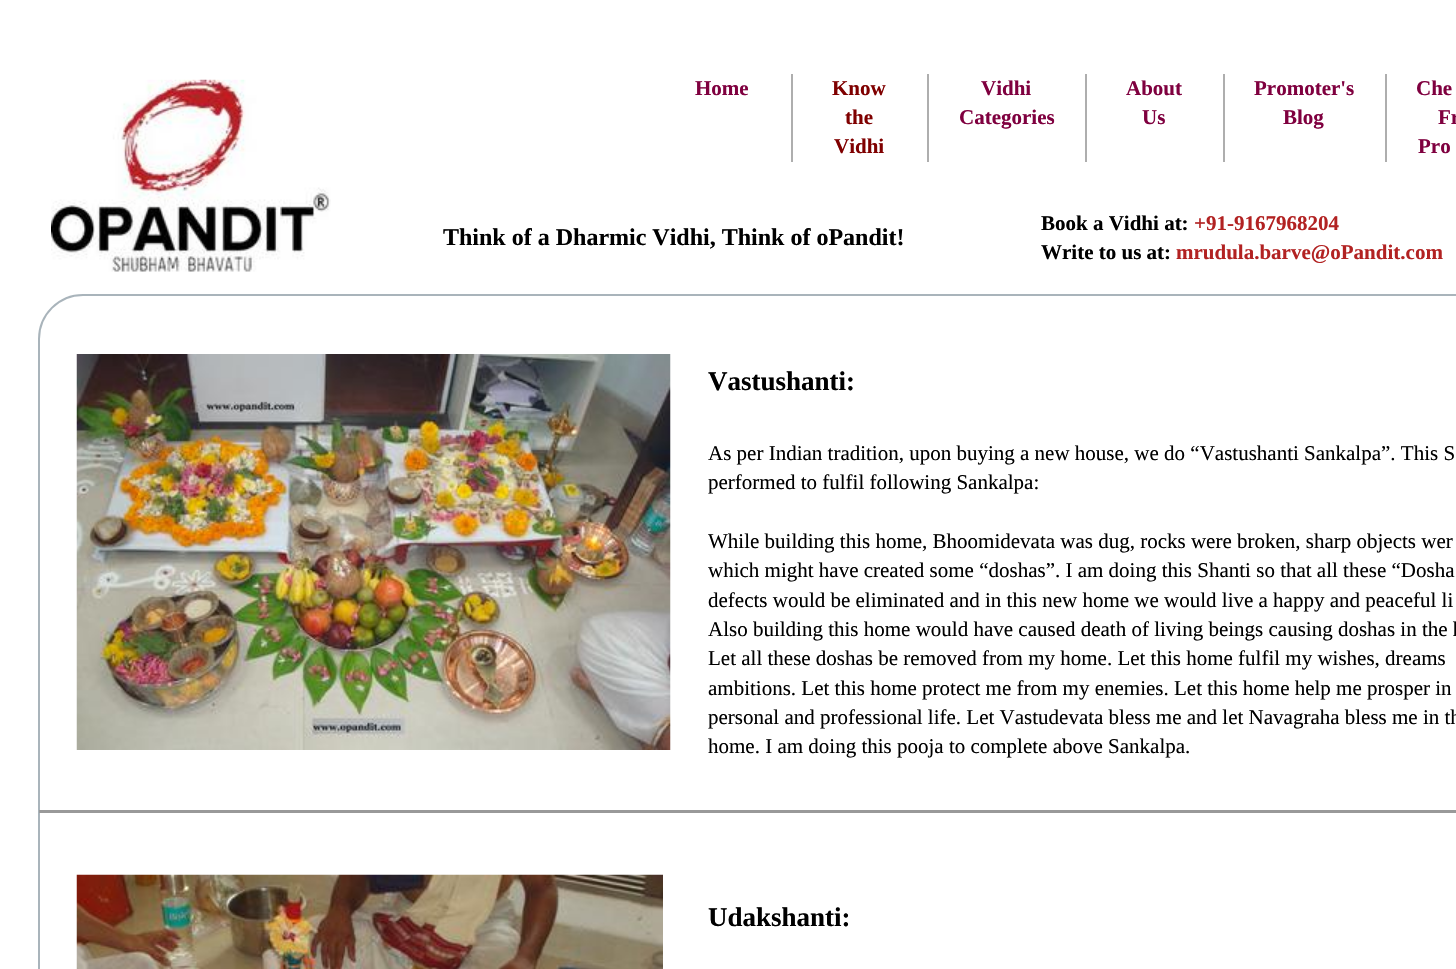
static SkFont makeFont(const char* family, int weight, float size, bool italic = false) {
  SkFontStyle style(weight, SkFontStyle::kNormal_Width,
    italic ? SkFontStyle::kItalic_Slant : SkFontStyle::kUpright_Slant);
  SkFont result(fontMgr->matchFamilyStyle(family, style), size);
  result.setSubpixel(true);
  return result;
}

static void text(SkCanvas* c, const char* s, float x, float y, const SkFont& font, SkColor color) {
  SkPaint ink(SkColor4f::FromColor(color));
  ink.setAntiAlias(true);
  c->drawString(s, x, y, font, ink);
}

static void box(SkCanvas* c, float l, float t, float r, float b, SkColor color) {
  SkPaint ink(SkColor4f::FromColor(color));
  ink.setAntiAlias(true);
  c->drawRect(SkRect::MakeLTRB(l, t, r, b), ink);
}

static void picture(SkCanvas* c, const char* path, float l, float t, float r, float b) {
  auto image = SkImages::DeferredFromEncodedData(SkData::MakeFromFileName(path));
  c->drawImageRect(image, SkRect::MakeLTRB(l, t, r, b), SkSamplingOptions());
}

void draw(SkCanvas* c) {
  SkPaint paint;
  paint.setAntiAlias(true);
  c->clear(0xffffffff);
  picture(c, "img_01.png", 51, 79, 331, 272);
  box(c, 791, 74, 793, 162, 0xffaeaeae);
  SkFont face1 = makeFont("Liberation Serif", 700, 21);
  text(c, "Home", 695, 95, face1, 0xff7f003f);
  box(c, 927, 74, 929, 162, 0xffaeaeae);
  text(c, "Know", 832, 95, face1, 0xff7f0000);
  text(c, "the", 845, 124, face1, 0xff7f0000);
  text(c, "Vidhi", 834, 153, face1, 0xff7f0000);
  box(c, 1085, 74, 1087, 162, 0xffaeaeae);
  text(c, "Vidhi", 981, 95, face1, 0xff7f003f);
  text(c, "Categories", 959, 124, face1, 0xff7f003f);
  box(c, 1223, 74, 1225, 162, 0xffaeaeae);
  text(c, "About", 1126, 95, face1, 0xff7f003f);
  text(c, "Us", 1142, 124, face1, 0xff7f003f);
  box(c, 1385, 74, 1387, 162, 0xffaeaeae);
  text(c, "Promoter's", 1254, 95, face1, 0xff7f003f);
  text(c, "Blog", 1283, 124, face1, 0xff7f003f);
  text(c, "Che", 1416, 95, face1, 0xff7f003f);
  text(c, "Fr", 1438, 124, face1, 0xff7f003f);
  text(c, "Pro", 1418, 153, face1, 0xff7f003f);
  SkFont face2 = makeFont("Liberation Serif", 700, 24);
  text(c, "Think of a Dharmic Vidhi, Think of oPandit!", 443, 245, face2, 0xff000000);
  text(c, "Book a Vidhi at:", 1041, 230, face1, 0xff000000);
  text(c, "+91-9167968204", 1194, 230, face1, 0xffb22222);
  text(c, "Write to us at:", 1041, 259, face1, 0xff000000);
  text(c, "mrudula.barve@oPandit.com", 1176, 259, face1, 0xffb22222);
  paint.setStyle(SkPaint::kStroke_Style);
  paint.setStrokeWidth(2);
  paint.setColor(0xffa9b4bb);
  c->drawRoundRect(SkRect::MakeLTRB(39, 295, 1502, 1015), 44, 44, paint);
  picture(c, "img_02.png", 76, 354, 671, 750);
  SkFont face3 = makeFont("Liberation Serif", 700, 27);
  text(c, "Vastushanti:", 708, 390, face3, 0xff000000);
  SkFont face4 = makeFont("Liberation Serif", 400, 21);
  text(c, "As per Indian tradition, upon buying a new house, we do “Vastushanti Sankalpa”. This S", 708, 460, face4, 0xff000000);
  text(c, "performed to fulfil following Sankalpa:", 708, 489, face4, 0xff000000);
  text(c, "While building this home, Bhoomidevata was dug, rocks were broken, sharp objects wer", 708, 548, face4, 0xff000000);
  text(c, "which might have created some “doshas”. I am doing this Shanti so that all these “Dosha", 708, 577, face4, 0xff000000);
  text(c, "defects would be eliminated and in this new home we would live a happy and peaceful li", 708, 607, face4, 0xff000000);
  text(c, "Also building this home would have caused death of living beings causing doshas in the h", 708, 636, face4, 0xff000000);
  text(c, "Let all these doshas be removed from my home. Let this home fulfil my wishes, dreams", 708, 665, face4, 0xff000000);
  text(c, "ambitions. Let this home protect me from my enemies. Let this home help me prosper in", 708, 695, face4, 0xff000000);
  text(c, "personal and professional life. Let Vastudevata bless me and let Navagraha bless me in th", 708, 724, face4, 0xff000000);
  text(c, "home. I am doing this pooja to complete above Sankalpa.", 708, 753, face4, 0xff000000);
  box(c, 39, 810, 1456, 813, 0xff999999);
  picture(c, "img_03.png", 76, 874, 663, 969);
  text(c, "Udakshanti:", 708, 926, face3, 0xff000000);
}
